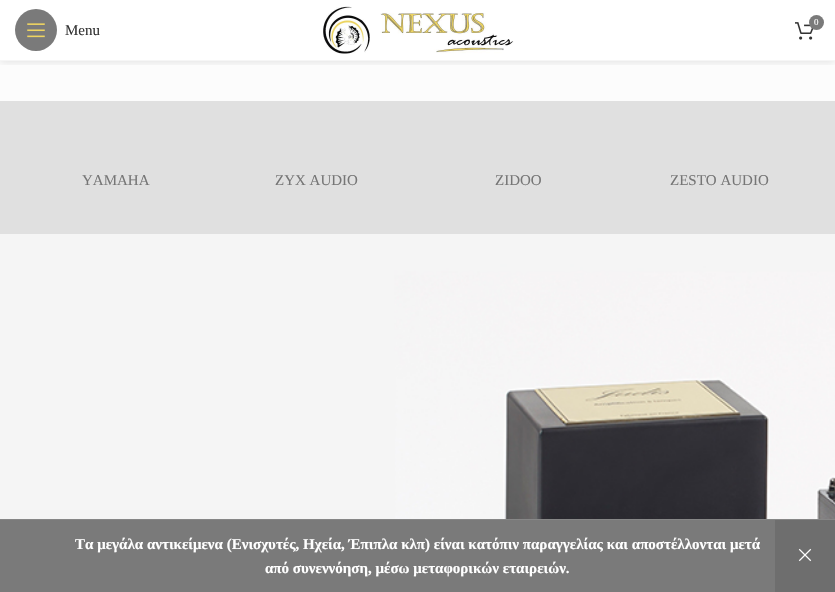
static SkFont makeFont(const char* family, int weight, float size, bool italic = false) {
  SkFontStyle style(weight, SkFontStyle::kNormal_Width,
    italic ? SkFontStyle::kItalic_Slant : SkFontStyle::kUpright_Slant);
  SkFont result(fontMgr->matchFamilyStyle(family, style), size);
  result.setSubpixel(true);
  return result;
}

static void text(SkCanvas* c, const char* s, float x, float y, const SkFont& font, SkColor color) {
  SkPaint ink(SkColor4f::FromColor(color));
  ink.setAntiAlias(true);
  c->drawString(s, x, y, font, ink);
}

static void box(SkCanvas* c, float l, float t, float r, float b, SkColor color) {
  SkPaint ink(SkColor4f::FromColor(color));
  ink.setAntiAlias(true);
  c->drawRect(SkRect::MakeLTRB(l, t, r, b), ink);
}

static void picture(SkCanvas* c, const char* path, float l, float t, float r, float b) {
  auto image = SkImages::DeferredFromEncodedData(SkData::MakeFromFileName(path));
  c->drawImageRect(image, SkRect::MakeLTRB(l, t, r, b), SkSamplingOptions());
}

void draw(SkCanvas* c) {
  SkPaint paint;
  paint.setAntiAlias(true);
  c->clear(0xffffffff);
  box(c, 0, 61, 835, 101, 0xfffcfcfc);
  c->save();
  c->clipRect(SkRect::MakeLTRB(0, 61, 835, 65));
  paint.setColor(0x1a000000);
  paint.setMaskFilter(SkMaskFilter::MakeBlur(kNormal_SkBlurStyle, 4));
  c->drawRect(SkRect::MakeLTRB(0, 1, 835, 62), paint);
  paint.setMaskFilter(nullptr);
  c->restore();
  box(c, 0, 60, 835, 61, 0xfff6f6f6);
  picture(c, "img_01.png", 323, 6, 514, 54);
  picture(c, "img_02.png", 795, 22, 814, 40);
  paint.setColor(0xff7a7a7a);
  c->drawCircle(816.5f, 22.5f, 7.5f, paint);
  SkFont face1 = makeFont("Tinos", 400, 9);
  text(c, "0", 814, 25, face1, 0xffffffff);
  c->drawCircle(36, 30, 21, paint);
  picture(c, "img_03.png", 27, 23, 45, 38);
  SkFont face2 = makeFont("Tinos", 400, 15);
  text(c, "Menu", 65, 35, face2, 0xff333333);
  box(c, 0, 101, 835, 234, 0xffe0e0e0);
  text(c, "ΥΑΜΑΗΑ", 82, 185, face2, 0xff767676);
  text(c, "ZYX AUDIO", 275, 185, face2, 0xff767676);
  text(c, "ZIDOO", 495, 185, face2, 0xff767676);
  text(c, "ZESTO AUDIO", 670, 185, face2, 0xff767676);
  picture(c, "img_04.png", 0, 234, 835, 519);
  box(c, 0, 520, 775, 592, 0xff7a7a7a);
  box(c, 0, 519, 835, 520, 0xff878787);
  SkFont face3 = makeFont("Tinos", 700, 15);
  text(c, "Τα μεγάλα αντικείμενα (Ενισχυτές, Ηχεία, Έπιπλα κλπ) είναι κατόπιν παραγγελίας και αποστέλλονται μετά", 75, 549, face3, 0xffffffff);
  box(c, 775, 520, 835, 592, 0xff6e6e6e);
  picture(c, "img_05.png", 798, 548, 812, 562);
  text(c, "από συνεννόηση, μέσω μεταφορικών εταιρειών.", 265, 573, face3, 0xffffffff);
}
